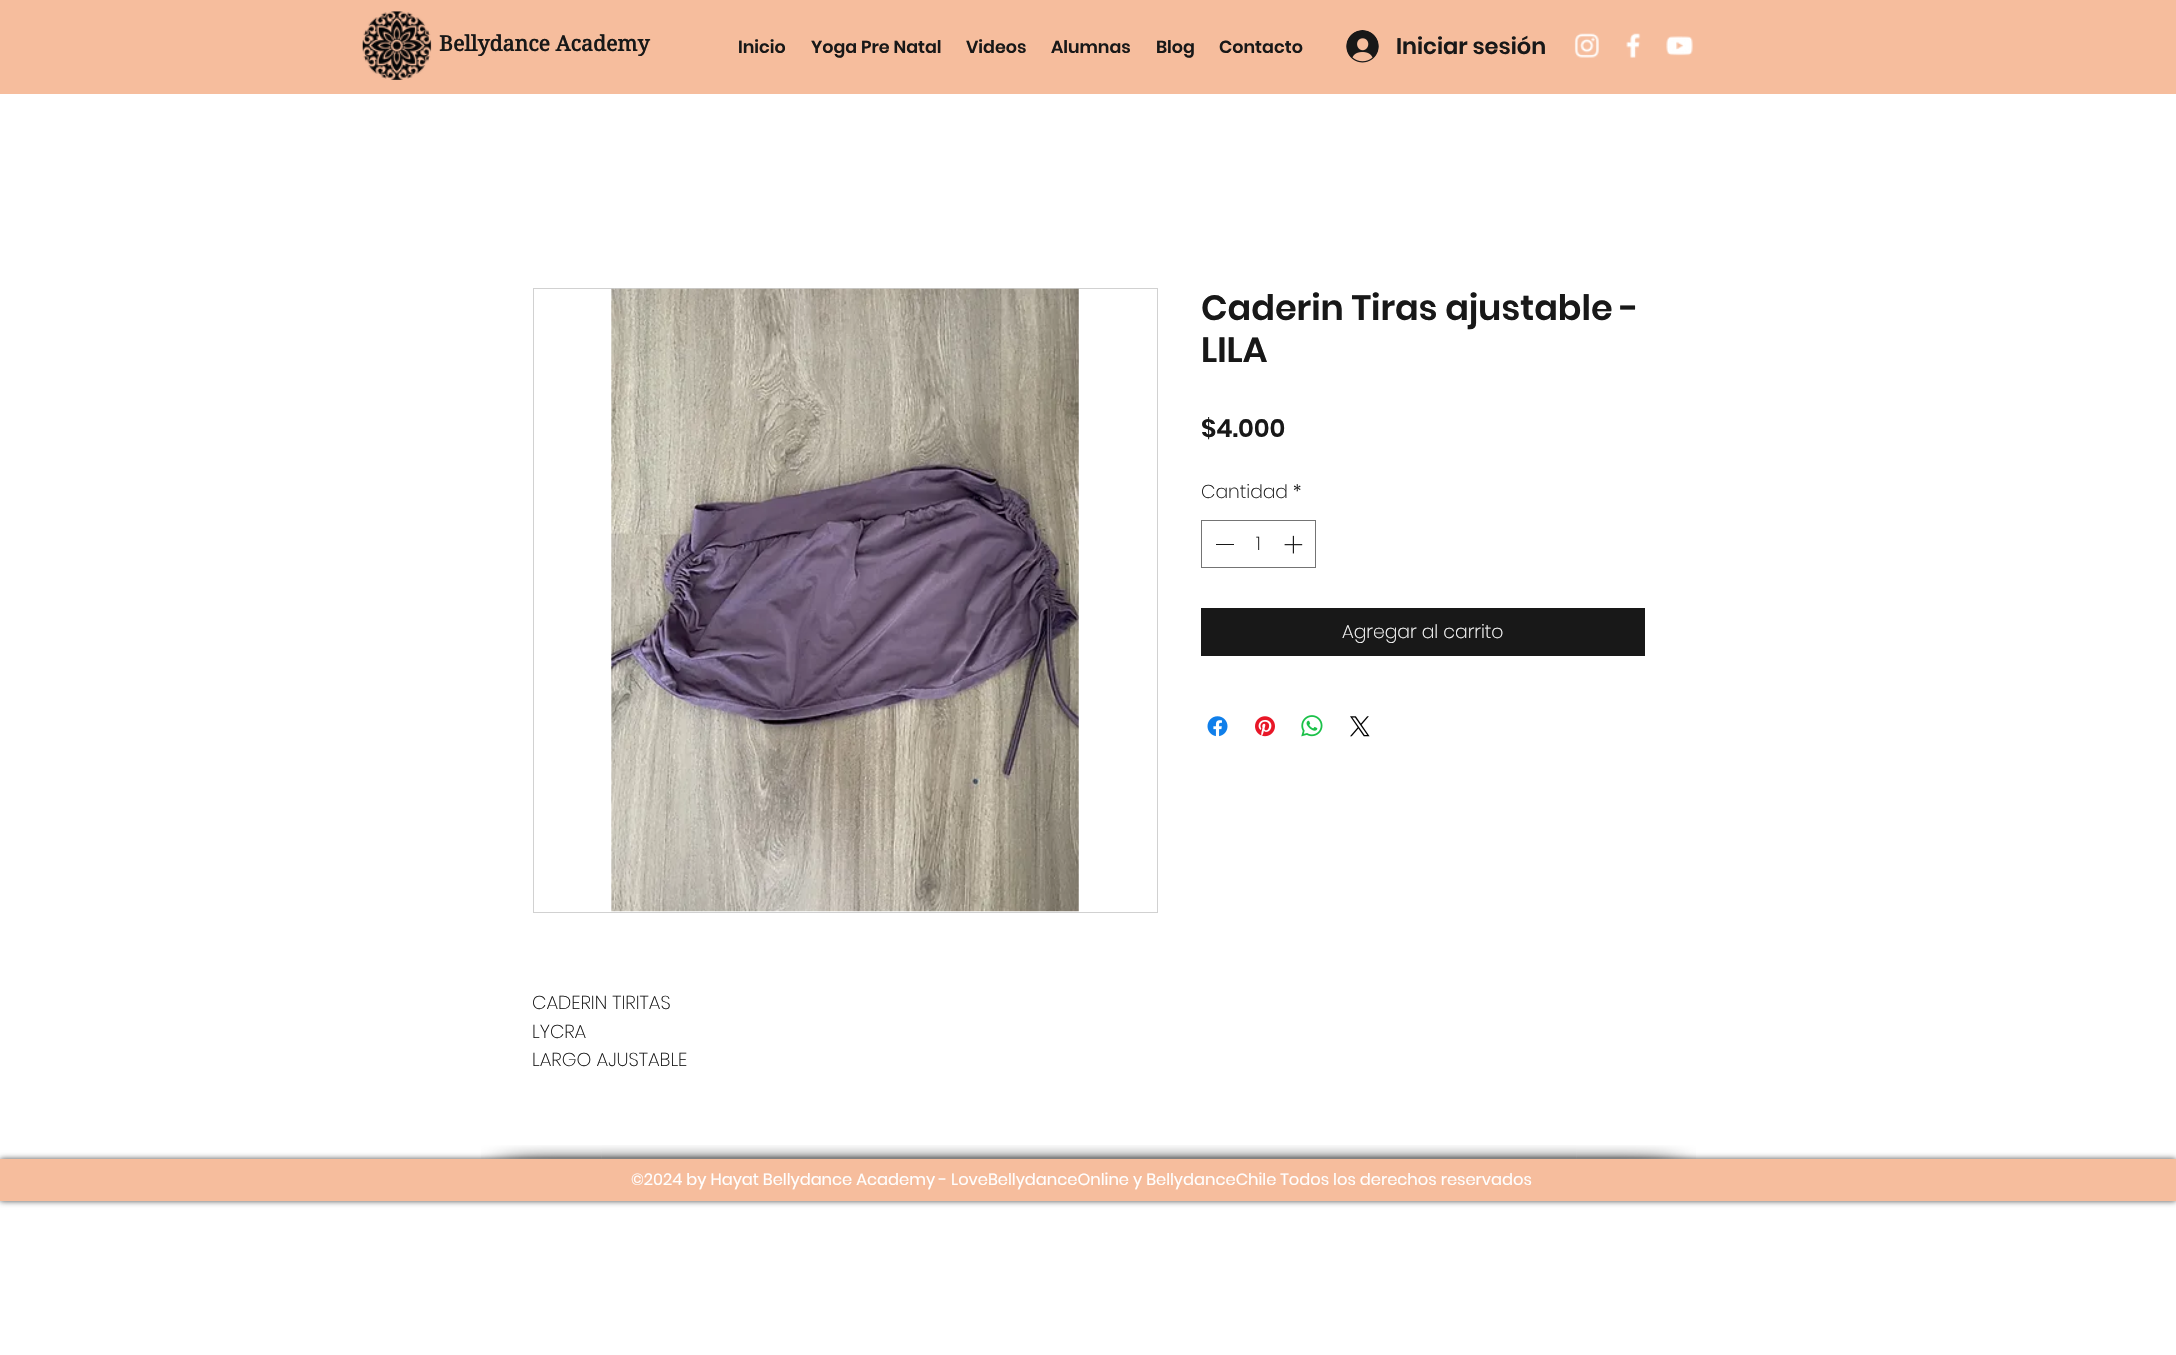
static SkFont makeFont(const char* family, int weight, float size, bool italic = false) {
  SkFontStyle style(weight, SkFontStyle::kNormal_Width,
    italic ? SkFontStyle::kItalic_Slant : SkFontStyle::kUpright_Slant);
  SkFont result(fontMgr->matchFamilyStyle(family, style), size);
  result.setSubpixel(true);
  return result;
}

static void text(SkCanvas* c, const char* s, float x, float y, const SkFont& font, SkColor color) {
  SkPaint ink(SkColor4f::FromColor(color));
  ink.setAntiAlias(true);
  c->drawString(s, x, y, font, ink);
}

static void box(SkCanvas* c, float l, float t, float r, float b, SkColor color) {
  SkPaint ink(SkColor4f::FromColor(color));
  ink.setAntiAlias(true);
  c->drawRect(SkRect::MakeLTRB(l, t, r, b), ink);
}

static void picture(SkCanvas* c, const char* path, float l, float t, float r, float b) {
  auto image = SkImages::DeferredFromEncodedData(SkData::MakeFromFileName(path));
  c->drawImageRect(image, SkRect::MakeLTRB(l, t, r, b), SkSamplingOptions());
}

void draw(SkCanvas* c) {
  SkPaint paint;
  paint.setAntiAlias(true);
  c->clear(0xffffffff);
  box(c, 0, 0, 2176, 94, 0xfff6bd9d);
  picture(c, "img_01.png", 362, 11, 432, 80);
  SkFont face1 = makeFont("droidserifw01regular", 700, 21.25f);
  text(c, "Bellydance Academy", 439, 51, face1, 0xff181818);
  SkFont face2 = makeFont("Poppins", 600, 17.5f);
  text(c, "Inicio", 738, 53, face2, 0xff181818);
  text(c, "Yoga Pre Natal", 811, 53, face2, 0xff181818);
  text(c, "Videos", 966, 53, face2, 0xff181818);
  text(c, "Alumnas", 1051, 53, face2, 0xff181818);
  text(c, "Blog", 1156, 53, face2, 0xff181818);
  text(c, "Contacto", 1219, 53, face2, 0xff181818);
  picture(c, "img_02.png", 1346, 30, 1379, 63);
  SkFont face3 = makeFont("Poppins", 600, 22.5f);
  text(c, "Iniciar sesión", 1396, 54, face3, 0xff181818);
  picture(c, "img_03.png", 1574, 33, 1599, 58);
  picture(c, "img_04.png", 1626, 33, 1641, 58);
  picture(c, "img_05.png", 1666, 36, 1693, 56);
  SkFont face4 = makeFont("Poppins", 600, 35);
  text(c, "Caderin Tiras ajustable -", 1201, 320, face4, 0xff181818);
  text(c, "LILA", 1201, 362, face4, 0xff181818);
  SkFont face5 = makeFont("Poppins", 600, 25);
  text(c, "$4.000", 1201, 437, face5, 0xff181818);
  SkFont face6 = makeFont("Poppins", 200, 18.75f);
  text(c, "Cantidad *", 1201, 498, face6, 0xff181818);
  paint.setStyle(SkPaint::kStroke_Style);
  paint.setStrokeWidth(1);
  paint.setColor(0xff747474);
  c->drawRect(SkRect::MakeLTRB(1201.5f, 520.5f, 1315.5f, 567.5f), paint);
  box(c, 1216, 544, 1234, 545, 0xff181818);
  text(c, "1", 1256, 550, face6, 0xff181818);
  picture(c, "img_06.png", 1284, 535, 1303, 554);
  box(c, 1201, 608, 1645, 656, 0xff181818);
  text(c, "Agregar al carrito", 1342, 638, face6, 0xffffffff);
  picture(c, "img_07.png", 1207, 716, 1228, 737);
  picture(c, "img_08.png", 1255, 716, 1275, 737);
  picture(c, "img_09.png", 1301, 715, 1323, 737);
  picture(c, "img_10.png", 1350, 716, 1370, 737);
  paint.setColor(0xffd1d1d1);
  c->drawRect(SkRect::MakeLTRB(533.5f, 288.5f, 1157.5f, 912.5f), paint);
  picture(c, "img_11.png", 611, 288, 1079, 912);
  text(c, "CADERIN TIRITAS", 532, 1009, face6, 0xff181818);
  text(c, "LYCRA", 532, 1038, face6, 0xff181818);
  text(c, "LARGO AJUSTABLE", 532, 1066, face6, 0xff181818);
  paint.setStyle(SkPaint::kFill_Style);
  paint.setColor(0xb3000000);
  paint.setMaskFilter(SkMaskFilter::MakeBlur(kNormal_SkBlurStyle, 3));
  c->drawRect(SkRect::MakeLTRB(0, 1159, 2176, 1201), paint);
  paint.setMaskFilter(nullptr);
  box(c, 0, 1159, 2176, 1201, 0xfff6bd9d);
  picture(c, "img_12.png", 481, 1145, 602, 1159);
  picture(c, "img_13.png", 601, 1145, 1577, 1159);
  picture(c, "img_14.png", 1576, 1145, 1696, 1159);
  SkFont face7 = makeFont("Poppins", 400, 16.25f);
  text(c, "©2024 by Hayat Bellydance Academy - LoveBellydanceOnline y BellydanceChile Todos los derechos reservados", 631, 1185, face7, 0xffffffff);
}
